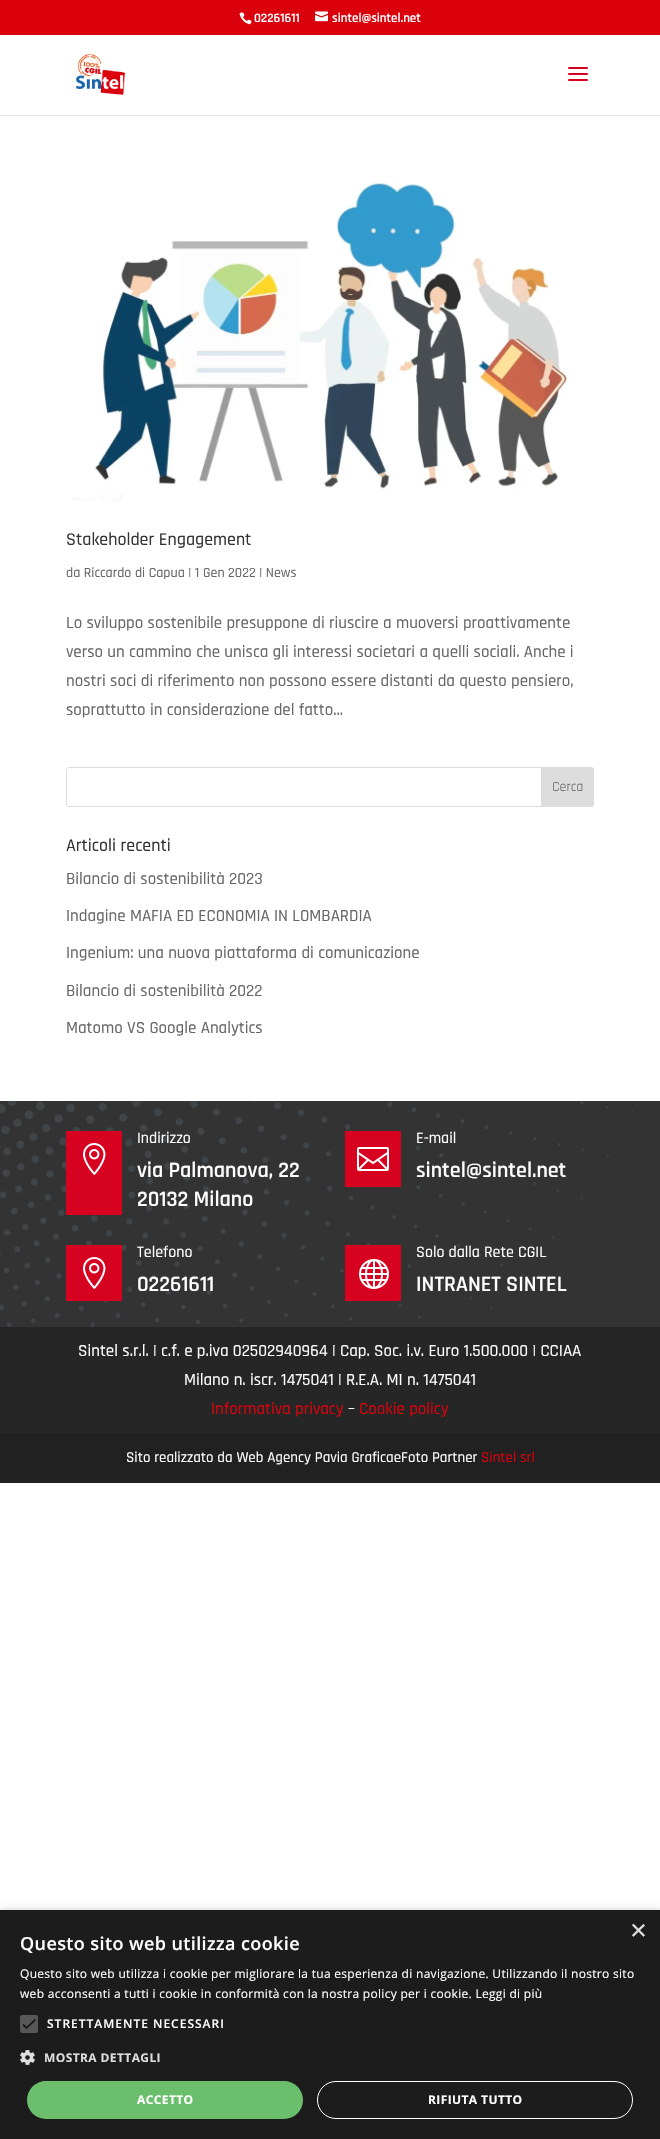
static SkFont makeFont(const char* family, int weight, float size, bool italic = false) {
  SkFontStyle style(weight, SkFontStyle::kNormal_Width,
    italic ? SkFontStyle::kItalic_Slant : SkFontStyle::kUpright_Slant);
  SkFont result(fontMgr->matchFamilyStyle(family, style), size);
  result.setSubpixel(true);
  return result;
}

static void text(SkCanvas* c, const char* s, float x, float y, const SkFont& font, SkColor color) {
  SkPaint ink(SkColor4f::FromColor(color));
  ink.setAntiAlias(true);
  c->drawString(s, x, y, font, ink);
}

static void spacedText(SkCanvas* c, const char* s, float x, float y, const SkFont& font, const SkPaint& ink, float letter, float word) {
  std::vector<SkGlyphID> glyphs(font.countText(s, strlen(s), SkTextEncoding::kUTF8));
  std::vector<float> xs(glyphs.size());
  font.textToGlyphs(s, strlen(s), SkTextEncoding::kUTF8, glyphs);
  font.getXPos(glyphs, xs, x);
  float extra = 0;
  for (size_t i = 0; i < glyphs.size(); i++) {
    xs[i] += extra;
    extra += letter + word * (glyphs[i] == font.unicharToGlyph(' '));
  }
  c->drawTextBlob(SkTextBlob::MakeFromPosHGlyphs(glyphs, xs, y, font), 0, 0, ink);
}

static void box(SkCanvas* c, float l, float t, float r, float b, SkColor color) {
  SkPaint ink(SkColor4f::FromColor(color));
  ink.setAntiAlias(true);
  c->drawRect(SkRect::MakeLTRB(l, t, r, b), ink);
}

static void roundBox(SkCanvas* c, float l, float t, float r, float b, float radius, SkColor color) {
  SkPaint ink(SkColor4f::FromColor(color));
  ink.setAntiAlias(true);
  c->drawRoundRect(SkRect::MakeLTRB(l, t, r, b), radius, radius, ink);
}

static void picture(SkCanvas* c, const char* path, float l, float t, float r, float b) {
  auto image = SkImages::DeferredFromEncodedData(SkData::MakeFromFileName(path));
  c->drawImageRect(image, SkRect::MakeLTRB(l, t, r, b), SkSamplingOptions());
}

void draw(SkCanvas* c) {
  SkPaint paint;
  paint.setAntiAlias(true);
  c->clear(0xffffffff);
  box(c, 0, 0, 660, 35, 0xffda010c);
  picture(c, "img_01.png", 239, 12, 252, 25);
  SkFont face1 = makeFont("Rajdhani", 600, 13);
  text(c, "02261611", 254, 22, face1, 0xffffffff);
  picture(c, "img_02.png", 315, 11, 328, 22);
  text(c, "sintel@sintel.net", 332, 22, face1, 0xffffffff);
  box(c, 0, 115, 660, 116, 0xffe6e6e6);
  picture(c, "img_03.png", 75, 53, 126, 95);
  picture(c, "img_04.png", 568, 67, 588, 81);
  picture(c, "img_05.png", 72, 182, 568, 501);
  SkFont face2 = makeFont("Rajdhani", 500, 18);
  text(c, "Stakeholder Engagement", 66, 545, face2, 0xff333333);
  SkFont face3 = makeFont("Rajdhani", 500, 14);
  text(c, "da Riccardo di Capua | 1 Gen 2022 | News", 66, 577, face3, 0xff666666);
  SkFont face4 = makeFont("Rajdhani", 500, 17);
  text(c, "Lo sviluppo sostenibile presuppone di riuscire a muoversi proattivamente", 66, 628, face4, 0xff666666);
  text(c, "verso un cammino che unisca gli interessi societari a quelli sociali. Anche i", 66, 657, face4, 0xff666666);
  text(c, "nostri soci di riferimento non possono essere distanti da questo pensiero,", 66, 686, face4, 0xff666666);
  text(c, "soprattutto in considerazione del fatto...", 66, 715, face4, 0xff666666);
  paint.setStyle(SkPaint::kStroke_Style);
  paint.setStrokeWidth(1);
  paint.setColor(0xffdddddd);
  c->drawRoundRect(SkRect::MakeLTRB(66.5f, 767.5f, 593.5f, 806.5f), 2.5f, 2.5f, paint);
  paint.setStyle(SkPaint::kFill_Style);
  c->drawPath(SkPathBuilder().moveTo(541.5f, 767.5f).lineTo(591, 767.5f).cubicTo(592.5f, 767.5f, 593.5f, 768.5f, 593.5f, 770).lineTo(593.5f, 804).cubicTo(593.5f, 805.5f, 592.5f, 806.5f, 591, 806.5f).lineTo(541.5f, 806.5f).close().detach(), paint);
  paint.setStyle(SkPaint::kStroke_Style);
  c->drawPath(SkPathBuilder().moveTo(541.5f, 767.5f).lineTo(591, 767.5f).cubicTo(592.5f, 767.5f, 593.5f, 768.5f, 593.5f, 770).lineTo(593.5f, 804).cubicTo(593.5f, 805.5f, 592.5f, 806.5f, 591, 806.5f).lineTo(541.5f, 806.5f).close().detach(), paint);
  SkFont face5 = makeFont("Rajdhani", 400, 14);
  text(c, "Cerca", 552, 791, face5, 0xff666666);
  text(c, "Articoli recenti", 66, 851, face2, 0xff333333);
  text(c, "Bilancio di sostenibilità 2023", 66, 884, face4, 0xff666666);
  text(c, "Indagine MAFIA ED ECONOMIA IN LOMBARDIA", 66, 921, face4, 0xff666666);
  text(c, "Ingenium: una nuova piattaforma di comunicazione", 66, 958, face4, 0xff666666);
  text(c, "Bilancio di sostenibilità 2022", 66, 996, face4, 0xff666666);
  text(c, "Matomo VS Google Analytics", 66, 1033, face4, 0xff666666);
  box(c, 0, 1101, 660, 1327, 0xff333333);
  picture(c, "img_06.png", 0, 1101, 633, 1327);
  box(c, 66, 1131, 122, 1215, 0xffd6021f);
  picture(c, "img_07.png", 83, 1143, 106, 1175);
  SkFont face6 = makeFont("Rajdhani", 500, 16);
  text(c, "Indirizzo", 137, 1143, face6, 0xffffffff);
  SkFont face7 = makeFont("Rajdhani", 600, 22);
  text(c, "via Palmanova, 22", 137, 1177, face7, 0xffffffff);
  text(c, "20132 Milano", 137, 1206, face7, 0xffffffff);
  box(c, 345, 1131, 401, 1187, 0xffd6021f);
  picture(c, "img_08.png", 357, 1147, 389, 1171);
  text(c, "E-mail", 416, 1143, face6, 0xffffffff);
  text(c, "sintel@sintel.net", 416, 1177, face7, 0xffffffff);
  box(c, 66, 1245, 122, 1301, 0xffd6021f);
  picture(c, "img_07.png", 83, 1257, 106, 1289);
  text(c, "Telefono", 137, 1257, face6, 0xffffffff);
  text(c, "02261611", 137, 1291, face7, 0xffffffff);
  box(c, 345, 1245, 401, 1301, 0xffd6021f);
  picture(c, "img_09.png", 359, 1259, 389, 1289);
  text(c, "Solo dalla Rete CGIL", 416, 1257, face6, 0xffffffff);
  text(c, "INTRANET SINTEL", 416, 1291, face7, 0xffffffff);
  box(c, 0, 1327, 660, 1434, 0xff262626);
  text(c, "Sintel s.r.l. | c.f. e p.iva 02502940964 | Cap. Soc. i.v. Euro 1.500.000 | CCIAA", 78, 1356, face4, 0xffffffff);
  text(c, "Milano n. iscr. 1475041 | R.E.A. MI n. 1475041", 184, 1385, face4, 0xffffffff);
  text(c, "Informativa privacy", 211, 1414, face4, 0xffda010c);
  text(c, "–", 348, 1414, face4, 0xffffffff);
  text(c, "Cookie policy", 359, 1414, face4, 0xffda010c);
  box(c, 0, 1434, 660, 1483, 0xff212121);
  SkFont face8 = makeFont("Rajdhani", 500, 15);
  text(c, "Sito realizzato da Web Agency Pavia GraficaeFoto Partner", 126, 1462, face8, 0xffffffff);
  text(c, "Sintel srl", 481, 1462, face8, 0xffda010c);
  paint.setStyle(SkPaint::kFill_Style);
  paint.setColor(0x59000000);
  paint.setMaskFilter(SkMaskFilter::MakeBlur(kNormal_SkBlurStyle, 4));
  c->drawRect(SkRect::MakeLTRB(1, 1912, 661, 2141), paint);
  paint.setMaskFilter(nullptr);
  box(c, 0, 1910, 660, 2139, 0xff1c1c1c);
  SkFont face9 = makeFont("Liberation Sans", 400, 29);
  text(c, "×", 630, 1940, face9, 0xffdddddd);
  SkFont face10 = makeFont("Open Sans", 600, 18);
  paint.setColor(0xffffffff);
  spacedText(c, "Questo sito web utilizza cookie", 20, 1950, face10, paint, 0.4f, 0);
  SkFont face11 = makeFont("Open Sans", 400, 12);
  spacedText(c, "Questo sito web utilizza i cookie per migliorare la tua esperienza di navigazione. Utilizzando il nostro sito", 20, 1978, face11, paint, 0.3f, 0);
  spacedText(c, "web acconsenti a tutti i cookie in conformità con la nostra policy per i cookie. Leggi di più", 20, 1998, face11, paint, 0.3f, 0);
  roundBox(c, 20, 2015, 38, 2033, 2, 0xff575757);
  paint.setStyle(SkPaint::kStroke_Style);
  paint.setStrokeWidth(1.8f);
  paint.setColor(0xff1c1c1c);
  c->drawPath(SkPathBuilder().moveTo(23, 2024.5f).lineTo(26.5f, 2028).lineTo(35.5f, 2019.5f).detach(), paint);
  SkFont face12 = makeFont("Open Sans", 600, 12);
  paint.setStyle(SkPaint::kFill_Style);
  paint.setColor(0xffffffff);
  spacedText(c, "STRETTAMENTE NECESSARI", 47, 2028, face12, paint, 1, 0);
  picture(c, "img_10.png", 20, 2050, 35, 2065);
  SkFont face13 = makeFont("Open Sans", 700, 12);
  paint.setColor(0xffdddddd);
  spacedText(c, "MOSTRA DETTAGLI", 44, 2062, face13, paint, 0.4f, 0);
  roundBox(c, 27, 2081, 303, 2119, 19, 0xff6bbe6b);
  paint.setColor(0xffffffff);
  spacedText(c, "ACCETTO", 137, 2104, face13, paint, 0.4f, 0);
  paint.setStyle(SkPaint::kStroke_Style);
  paint.setStrokeWidth(1);
  c->drawRoundRect(SkRect::MakeLTRB(317.5f, 2081.5f, 632.5f, 2118.5f), 18.5f, 18.5f, paint);
  paint.setStyle(SkPaint::kFill_Style);
  spacedText(c, "RIFIUTA TUTTO", 428, 2104, face13, paint, 0.4f, 0);
}
